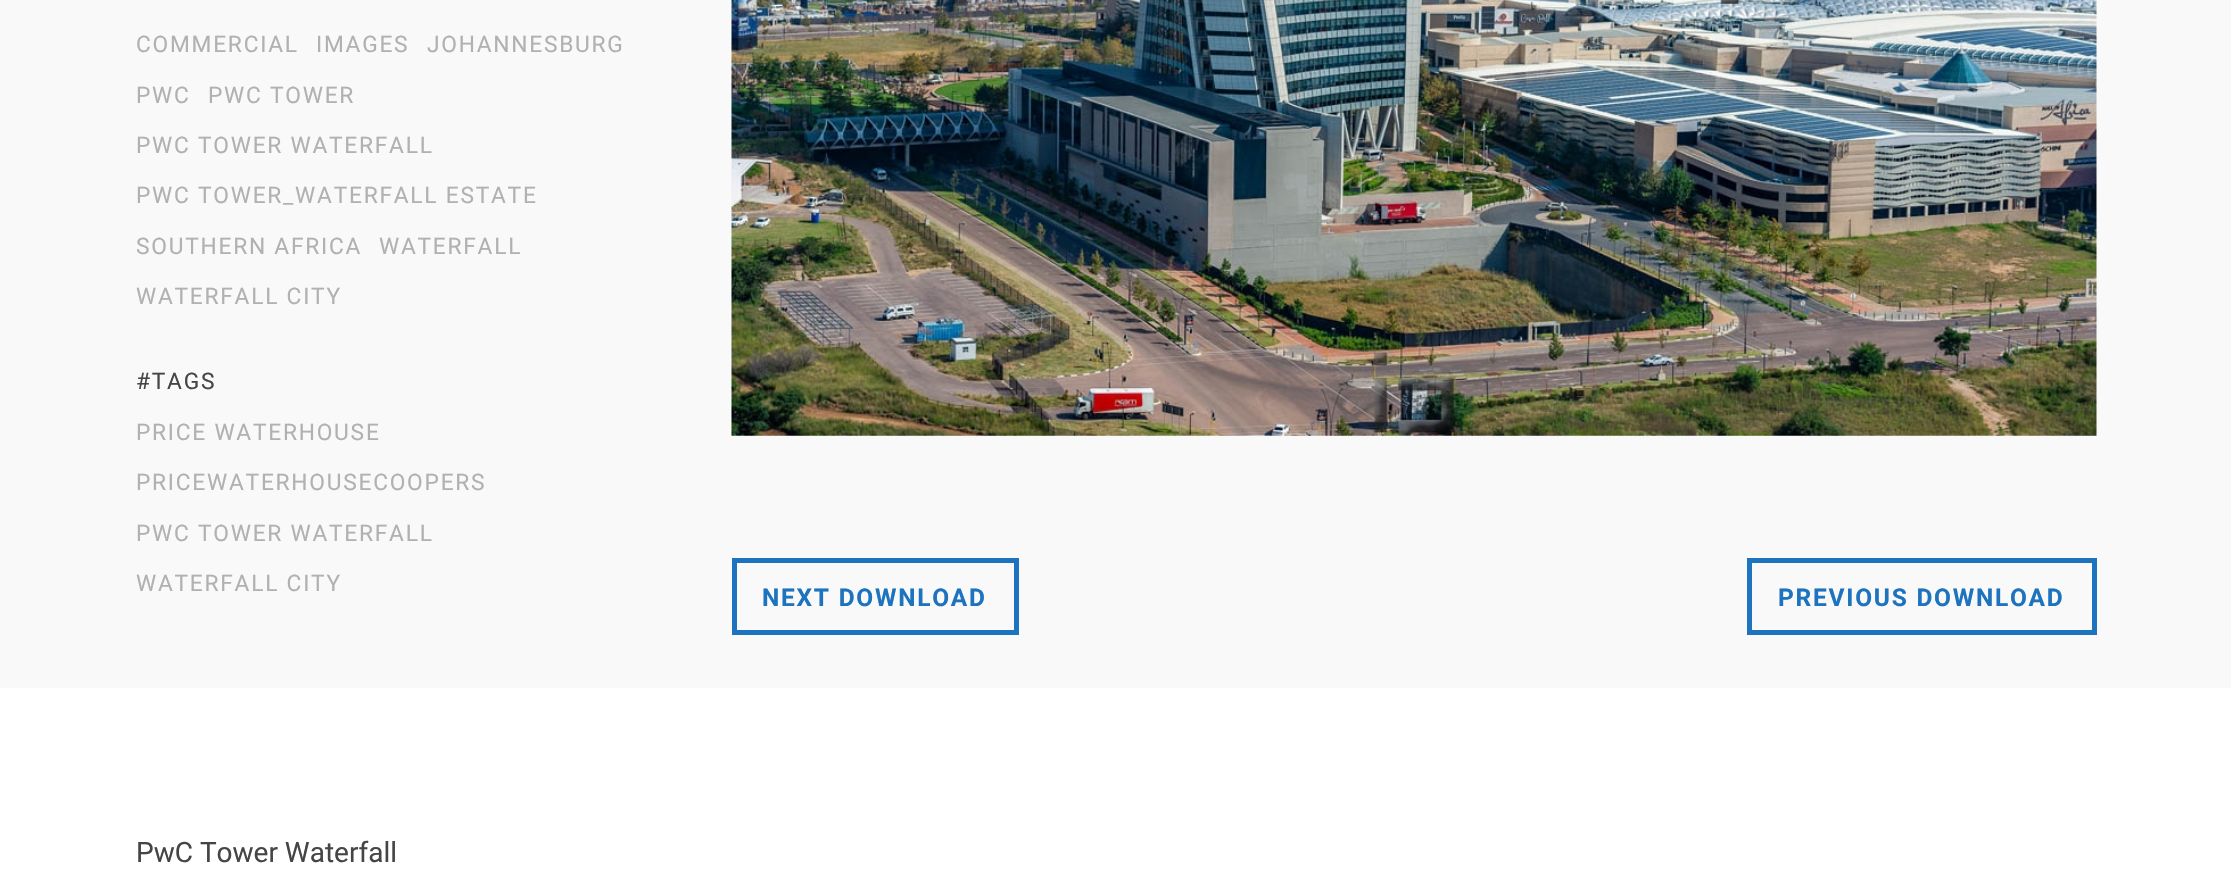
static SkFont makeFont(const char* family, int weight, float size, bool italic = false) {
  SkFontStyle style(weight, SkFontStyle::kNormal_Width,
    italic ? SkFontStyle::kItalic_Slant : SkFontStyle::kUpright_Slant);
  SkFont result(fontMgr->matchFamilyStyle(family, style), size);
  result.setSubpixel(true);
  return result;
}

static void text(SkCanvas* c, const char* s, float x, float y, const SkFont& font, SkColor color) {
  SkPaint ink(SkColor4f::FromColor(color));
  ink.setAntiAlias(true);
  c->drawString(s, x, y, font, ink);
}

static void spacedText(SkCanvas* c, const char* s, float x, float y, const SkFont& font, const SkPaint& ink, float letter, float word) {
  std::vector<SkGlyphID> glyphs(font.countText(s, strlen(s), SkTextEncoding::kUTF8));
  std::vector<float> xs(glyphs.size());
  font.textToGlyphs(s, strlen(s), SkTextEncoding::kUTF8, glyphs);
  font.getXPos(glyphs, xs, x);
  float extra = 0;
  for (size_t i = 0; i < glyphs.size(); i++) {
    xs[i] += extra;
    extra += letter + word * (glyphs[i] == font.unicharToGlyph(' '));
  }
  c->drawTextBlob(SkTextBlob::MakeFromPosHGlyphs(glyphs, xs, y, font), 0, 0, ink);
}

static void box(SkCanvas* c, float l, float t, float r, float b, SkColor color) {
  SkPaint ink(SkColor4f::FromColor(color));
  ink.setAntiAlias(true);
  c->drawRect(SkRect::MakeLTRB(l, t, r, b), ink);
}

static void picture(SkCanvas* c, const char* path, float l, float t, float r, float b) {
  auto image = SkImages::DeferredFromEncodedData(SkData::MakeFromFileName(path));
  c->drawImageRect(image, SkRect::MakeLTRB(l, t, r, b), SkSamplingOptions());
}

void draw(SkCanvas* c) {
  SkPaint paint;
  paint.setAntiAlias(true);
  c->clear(0xffffffff);
  box(c, 0, 0, 2231, 688, 0xfff9f9f9);
  SkFont face1 = makeFont("Roboto", 400, 22.75f);
  paint.setColor(0xffb1b1b1);
  spacedText(c, "COMMERCIAL", 136, 52, face1, paint, 1.75f, 0);
  spacedText(c, "IMAGES", 316, 52, face1, paint, 1.75f, 0);
  spacedText(c, "JOHANNESBURG", 427, 52, face1, paint, 1.75f, 0);
  spacedText(c, "PWC", 136, 103, face1, paint, 1.75f, 0);
  spacedText(c, "PWC TOWER", 208, 103, face1, paint, 1.75f, 0);
  spacedText(c, "PWC TOWER WATERFALL", 136, 153, face1, paint, 1.75f, 0);
  spacedText(c, "PWC TOWER_WATERFALL ESTATE", 136, 203, face1, paint, 1.75f, 0);
  spacedText(c, "SOUTHERN AFRICA", 136, 254, face1, paint, 1.75f, 0);
  spacedText(c, "WATERFALL", 379, 254, face1, paint, 1.75f, 0);
  spacedText(c, "WATERFALL CITY", 136, 304, face1, paint, 1.75f, 0);
  paint.setColor(0xff454545);
  spacedText(c, "#TAGS", 136, 389, face1, paint, 1.75f, 0);
  paint.setColor(0xffb1b1b1);
  spacedText(c, "PRICE WATERHOUSE", 136, 440, face1, paint, 1.75f, 0);
  spacedText(c, "PRICEWATERHOUSECOOPERS", 136, 490, face1, paint, 1.75f, 0);
  spacedText(c, "PWC TOWER WATERFALL", 136, 541, face1, paint, 1.75f, 0);
  spacedText(c, "WATERFALL CITY", 136, 591, face1, paint, 1.75f, 0);
  picture(c, "img_01.png", 731, 0, 2097, 436);
  paint.setStyle(SkPaint::kStroke_Style);
  paint.setStrokeWidth(5);
  paint.setColor(0xff1e73be);
  c->drawRect(SkRect::MakeLTRB(734.5f, 560.5f, 1016.5f, 632.5f), paint);
  SkFont face2 = makeFont("Roboto", 700, 24.5f);
  paint.setStyle(SkPaint::kFill_Style);
  spacedText(c, "NEXT DOWNLOAD", 762, 606, face2, paint, 1.75f, 0);
  paint.setStyle(SkPaint::kStroke_Style);
  c->drawRect(SkRect::MakeLTRB(1749.5f, 560.5f, 2094.5f, 632.5f), paint);
  paint.setStyle(SkPaint::kFill_Style);
  spacedText(c, "PREVIOUS DOWNLOAD", 1778, 606, face2, paint, 1.75f, 0);
  SkFont face3 = makeFont("Roboto", 400, 28);
  text(c, "PwC Tower Waterfall", 136, 862, face3, 0xff454545);
}
